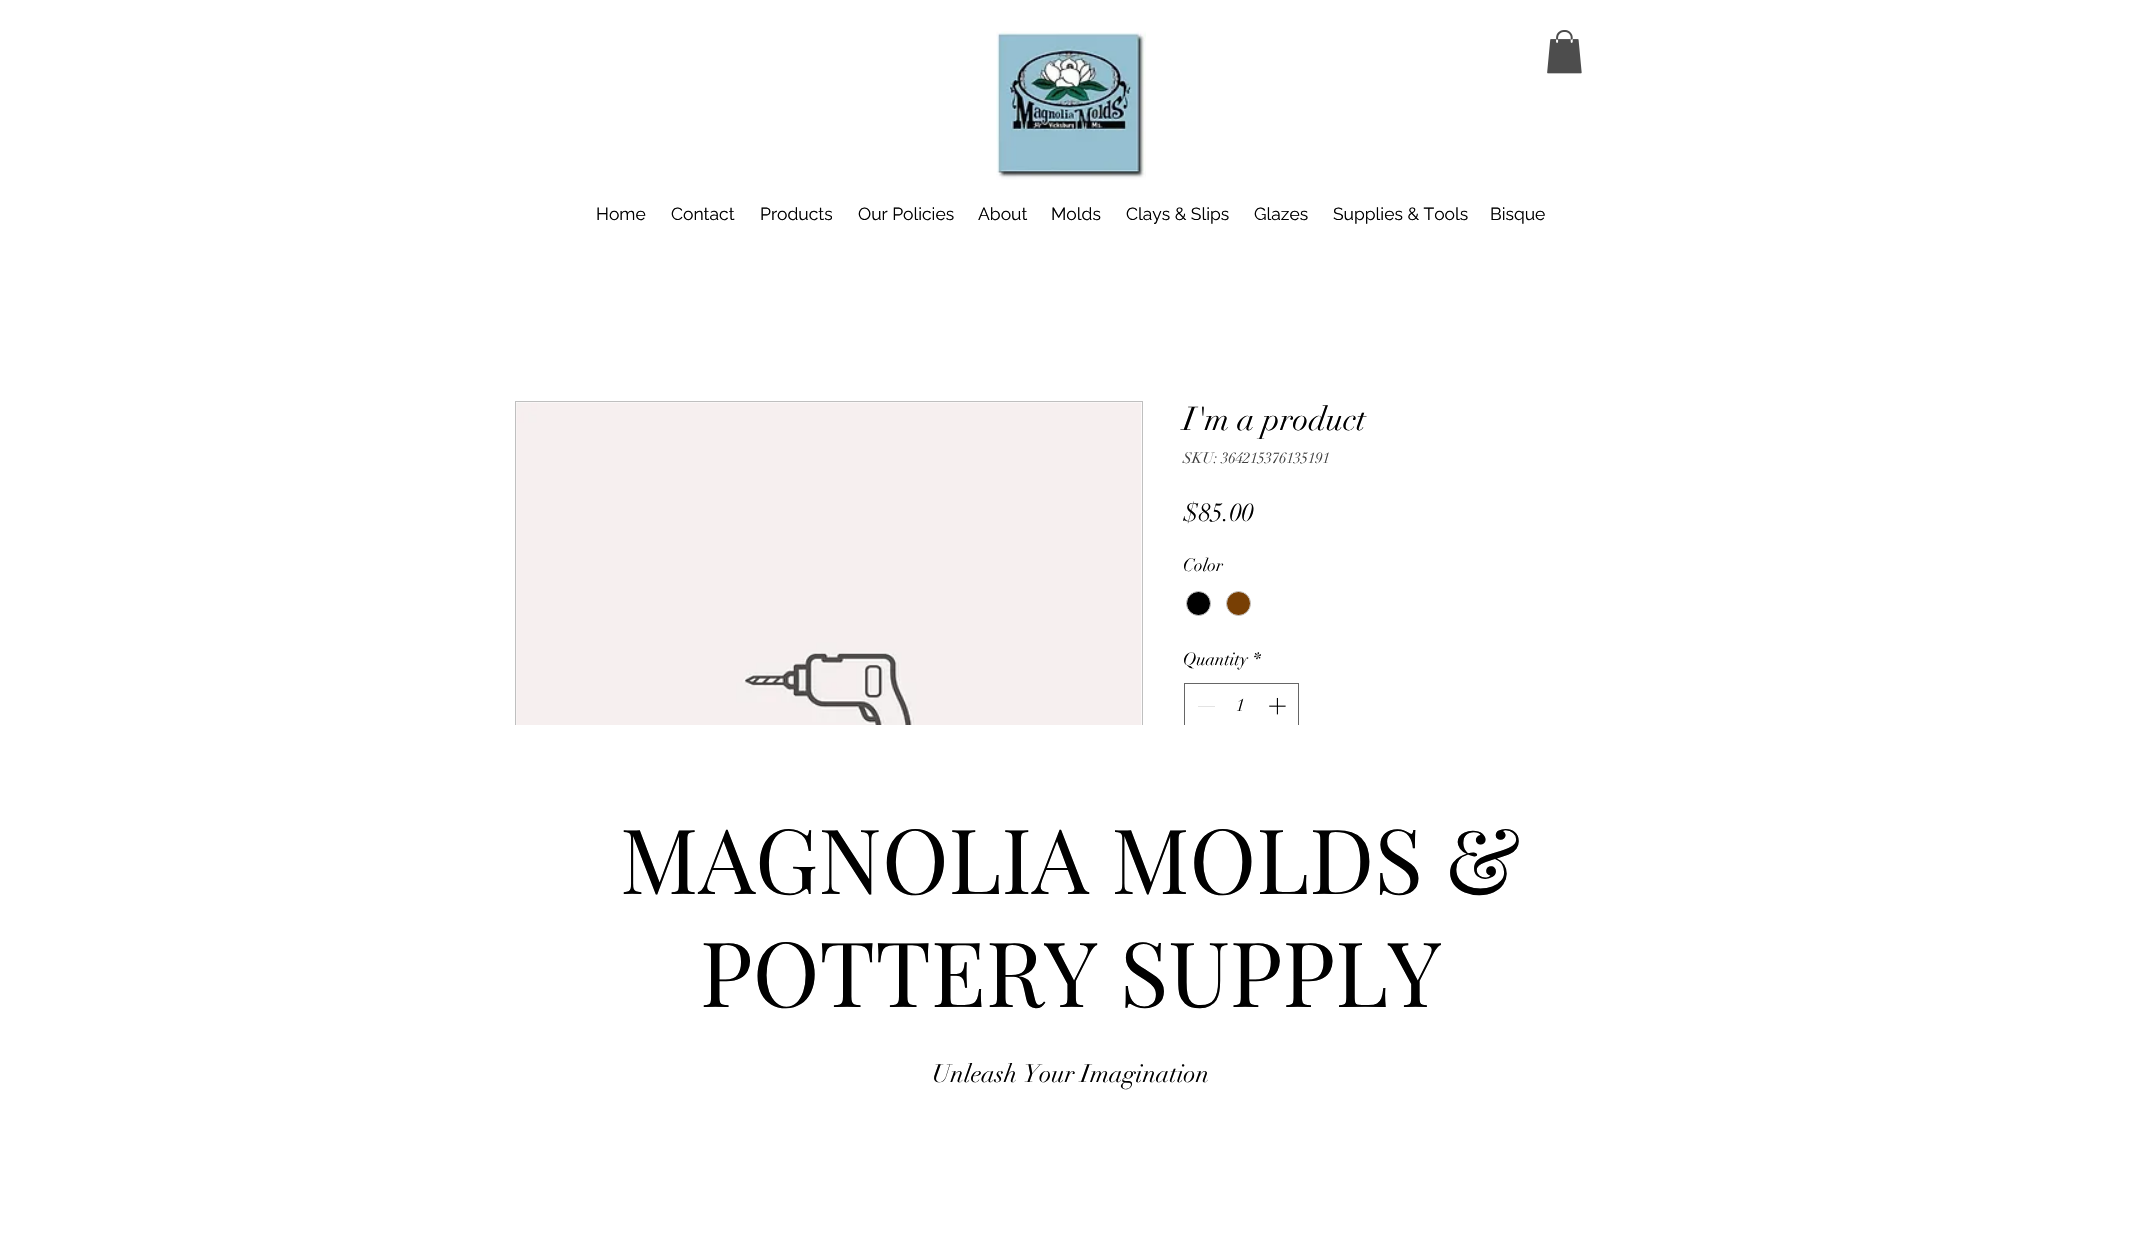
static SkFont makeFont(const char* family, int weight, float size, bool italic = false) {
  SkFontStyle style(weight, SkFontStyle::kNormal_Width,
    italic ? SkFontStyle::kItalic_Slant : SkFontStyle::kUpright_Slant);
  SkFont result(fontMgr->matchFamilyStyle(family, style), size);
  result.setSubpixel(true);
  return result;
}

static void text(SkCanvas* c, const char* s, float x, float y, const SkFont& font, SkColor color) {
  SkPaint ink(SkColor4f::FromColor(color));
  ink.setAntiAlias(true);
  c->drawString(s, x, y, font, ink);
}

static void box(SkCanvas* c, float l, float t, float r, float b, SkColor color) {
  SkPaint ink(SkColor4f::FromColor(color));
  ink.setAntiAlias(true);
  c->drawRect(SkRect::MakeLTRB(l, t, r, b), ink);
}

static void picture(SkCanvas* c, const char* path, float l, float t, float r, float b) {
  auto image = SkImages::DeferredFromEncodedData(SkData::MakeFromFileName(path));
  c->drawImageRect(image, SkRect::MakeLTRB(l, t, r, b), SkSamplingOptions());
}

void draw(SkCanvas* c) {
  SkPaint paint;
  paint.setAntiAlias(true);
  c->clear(0xffffffff);
  picture(c, "img_01.png", 996, 31, 1146, 180);
  picture(c, "img_02.png", 1547, 30, 1582, 74);
  SkFont face1 = makeFont("Raleway", 400, 17.5f);
  text(c, "Home", 596, 220, face1, 0xff000000);
  text(c, "Contact", 671, 220, face1, 0xff000000);
  text(c, "Products", 760, 220, face1, 0xff000000);
  text(c, "Our Policies", 858, 220, face1, 0xff000000);
  text(c, "About", 978, 220, face1, 0xff000000);
  text(c, "Molds", 1051, 220, face1, 0xff000000);
  text(c, "Clays & Slips", 1126, 220, face1, 0xff000000);
  text(c, "Glazes", 1254, 220, face1, 0xff000000);
  text(c, "Supplies & Tools", 1333, 220, face1, 0xff000000);
  text(c, "Bisque", 1490, 220, face1, 0xff000000);
  paint.setStyle(SkPaint::kStroke_Style);
  paint.setStrokeWidth(1);
  paint.setColor(0xffbfbfbf);
  c->drawRect(SkRect::MakeLTRB(515.5f, 401.5f, 1142.5f, 1028.5f), paint);
  picture(c, "img_03.png", 516, 402, 1142, 725);
  SkFont face2 = makeFont("didot", 400, 32.5f);
  text(c, "I'm a product", 1183, 430, face2, 0xff000000);
  SkFont face3 = makeFont("didot", 400, 15);
  text(c, "SKU: 364215376135191", 1183, 463, face3, 0xff404040);
  SkFont face4 = makeFont("didot", 400, 25);
  text(c, "$85.00", 1183, 521, face4, 0xff000000);
  SkFont face5 = makeFont("didot", 400, 17.5f);
  text(c, "Color", 1183, 571, face5, 0xff000000);
  paint.setStyle(SkPaint::kFill_Style);
  paint.setColor(0xff000000);
  c->drawCircle(1198.5f, 603.5f, 12, paint);
  paint.setStyle(SkPaint::kStroke_Style);
  paint.setColor(0xffc9c9c9);
  c->drawCircle(1198.5f, 603.5f, 12, paint);
  paint.setStyle(SkPaint::kFill_Style);
  paint.setColor(0xff783f04);
  c->drawCircle(1238.5f, 603.5f, 12, paint);
  paint.setStyle(SkPaint::kStroke_Style);
  paint.setColor(0xffc9c9c9);
  c->drawCircle(1238.5f, 603.5f, 12, paint);
  text(c, "Quantity", 1183, 665, face5, 0xff000000);
  text(c, "*", 1253, 665, face5, 0xff000000);
  paint.setColor(0xff666666);
  c->drawRect(SkRect::MakeLTRB(1184.5f, 683.5f, 1298.5f, 728.5f), paint);
  box(c, 1198, 706, 1215, 707, 0xffe3e3e3);
  text(c, "1", 1236, 711, face5, 0xff000000);
  picture(c, "img_04.png", 1269, 697, 1286, 715);
  box(c, 515, 725, 1299, 1029, 0xffffffff);
  SkFont face6 = makeFont("Playfair Display", 400, 90);
  text(c, "MAGNOLIA MOLDS &", 620, 894, face6, 0xff000000);
  text(c, "POTTERY SUPPLY", 700, 1007, face6, 0xff000000);
  text(c, "Unleash Your Imagination", 932, 1082, face4, 0xff000000);
}
